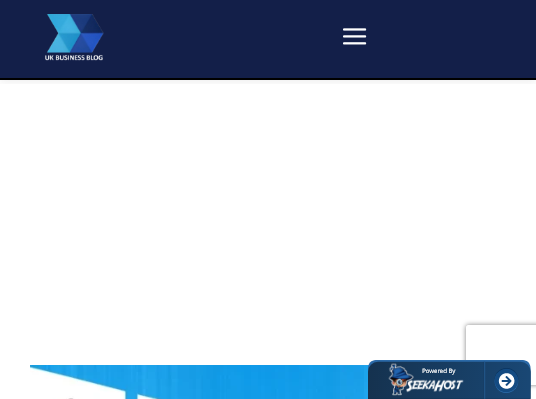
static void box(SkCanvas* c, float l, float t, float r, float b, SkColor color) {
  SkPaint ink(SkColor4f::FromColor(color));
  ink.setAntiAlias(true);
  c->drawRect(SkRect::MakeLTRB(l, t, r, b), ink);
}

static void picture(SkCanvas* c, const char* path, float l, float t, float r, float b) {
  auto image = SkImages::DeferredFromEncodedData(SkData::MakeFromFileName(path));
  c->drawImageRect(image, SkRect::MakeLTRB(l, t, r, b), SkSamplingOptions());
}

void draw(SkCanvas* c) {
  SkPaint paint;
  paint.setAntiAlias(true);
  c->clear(0xff131f49);
  box(c, 0, 78, 536, 80, 0xff000000);
  picture(c, "img_01.png", 45, 14, 104, 61);
  picture(c, "img_02.png", 343, 28, 367, 45);
  box(c, 0, 80, 536, 399, 0xffffffff);
  c->save();
  c->clipRect(SkRect::MakeLTRB(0, 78, 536, 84));
  paint.setColor(0x17000000);
  paint.setMaskFilter(SkMaskFilter::MakeBlur(kNormal_SkBlurStyle, 5));
  c->drawRect(SkRect::MakeLTRB(0, 2, 536, 80), paint);
  paint.setMaskFilter(nullptr);
  c->restore();
  picture(c, "img_03.png", 30, 365, 369, 399);
  c->save();
  c->clipPath(SkPathBuilder(SkPathFillType::kEvenOdd).moveTo(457, 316).lineTo(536, 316).lineTo(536, 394).lineTo(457, 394).close().moveTo(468, 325).lineTo(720, 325).cubicTo(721, 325, 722, 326, 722, 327).lineTo(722, 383).cubicTo(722, 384, 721, 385, 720, 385).lineTo(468, 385).cubicTo(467, 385, 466, 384, 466, 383).lineTo(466, 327).cubicTo(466, 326, 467, 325, 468, 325).close().detach(), true);
  paint.setColor(0xff808080);
  paint.setMaskFilter(SkMaskFilter::MakeBlur(kNormal_SkBlurStyle, 2.5f));
  c->drawRoundRect(SkRect::MakeLTRB(466, 325, 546, 385), 2, 2, paint);
  paint.setMaskFilter(nullptr);
  c->restore();
  picture(c, "img_04.png", 368, 360, 531, 399);
}
